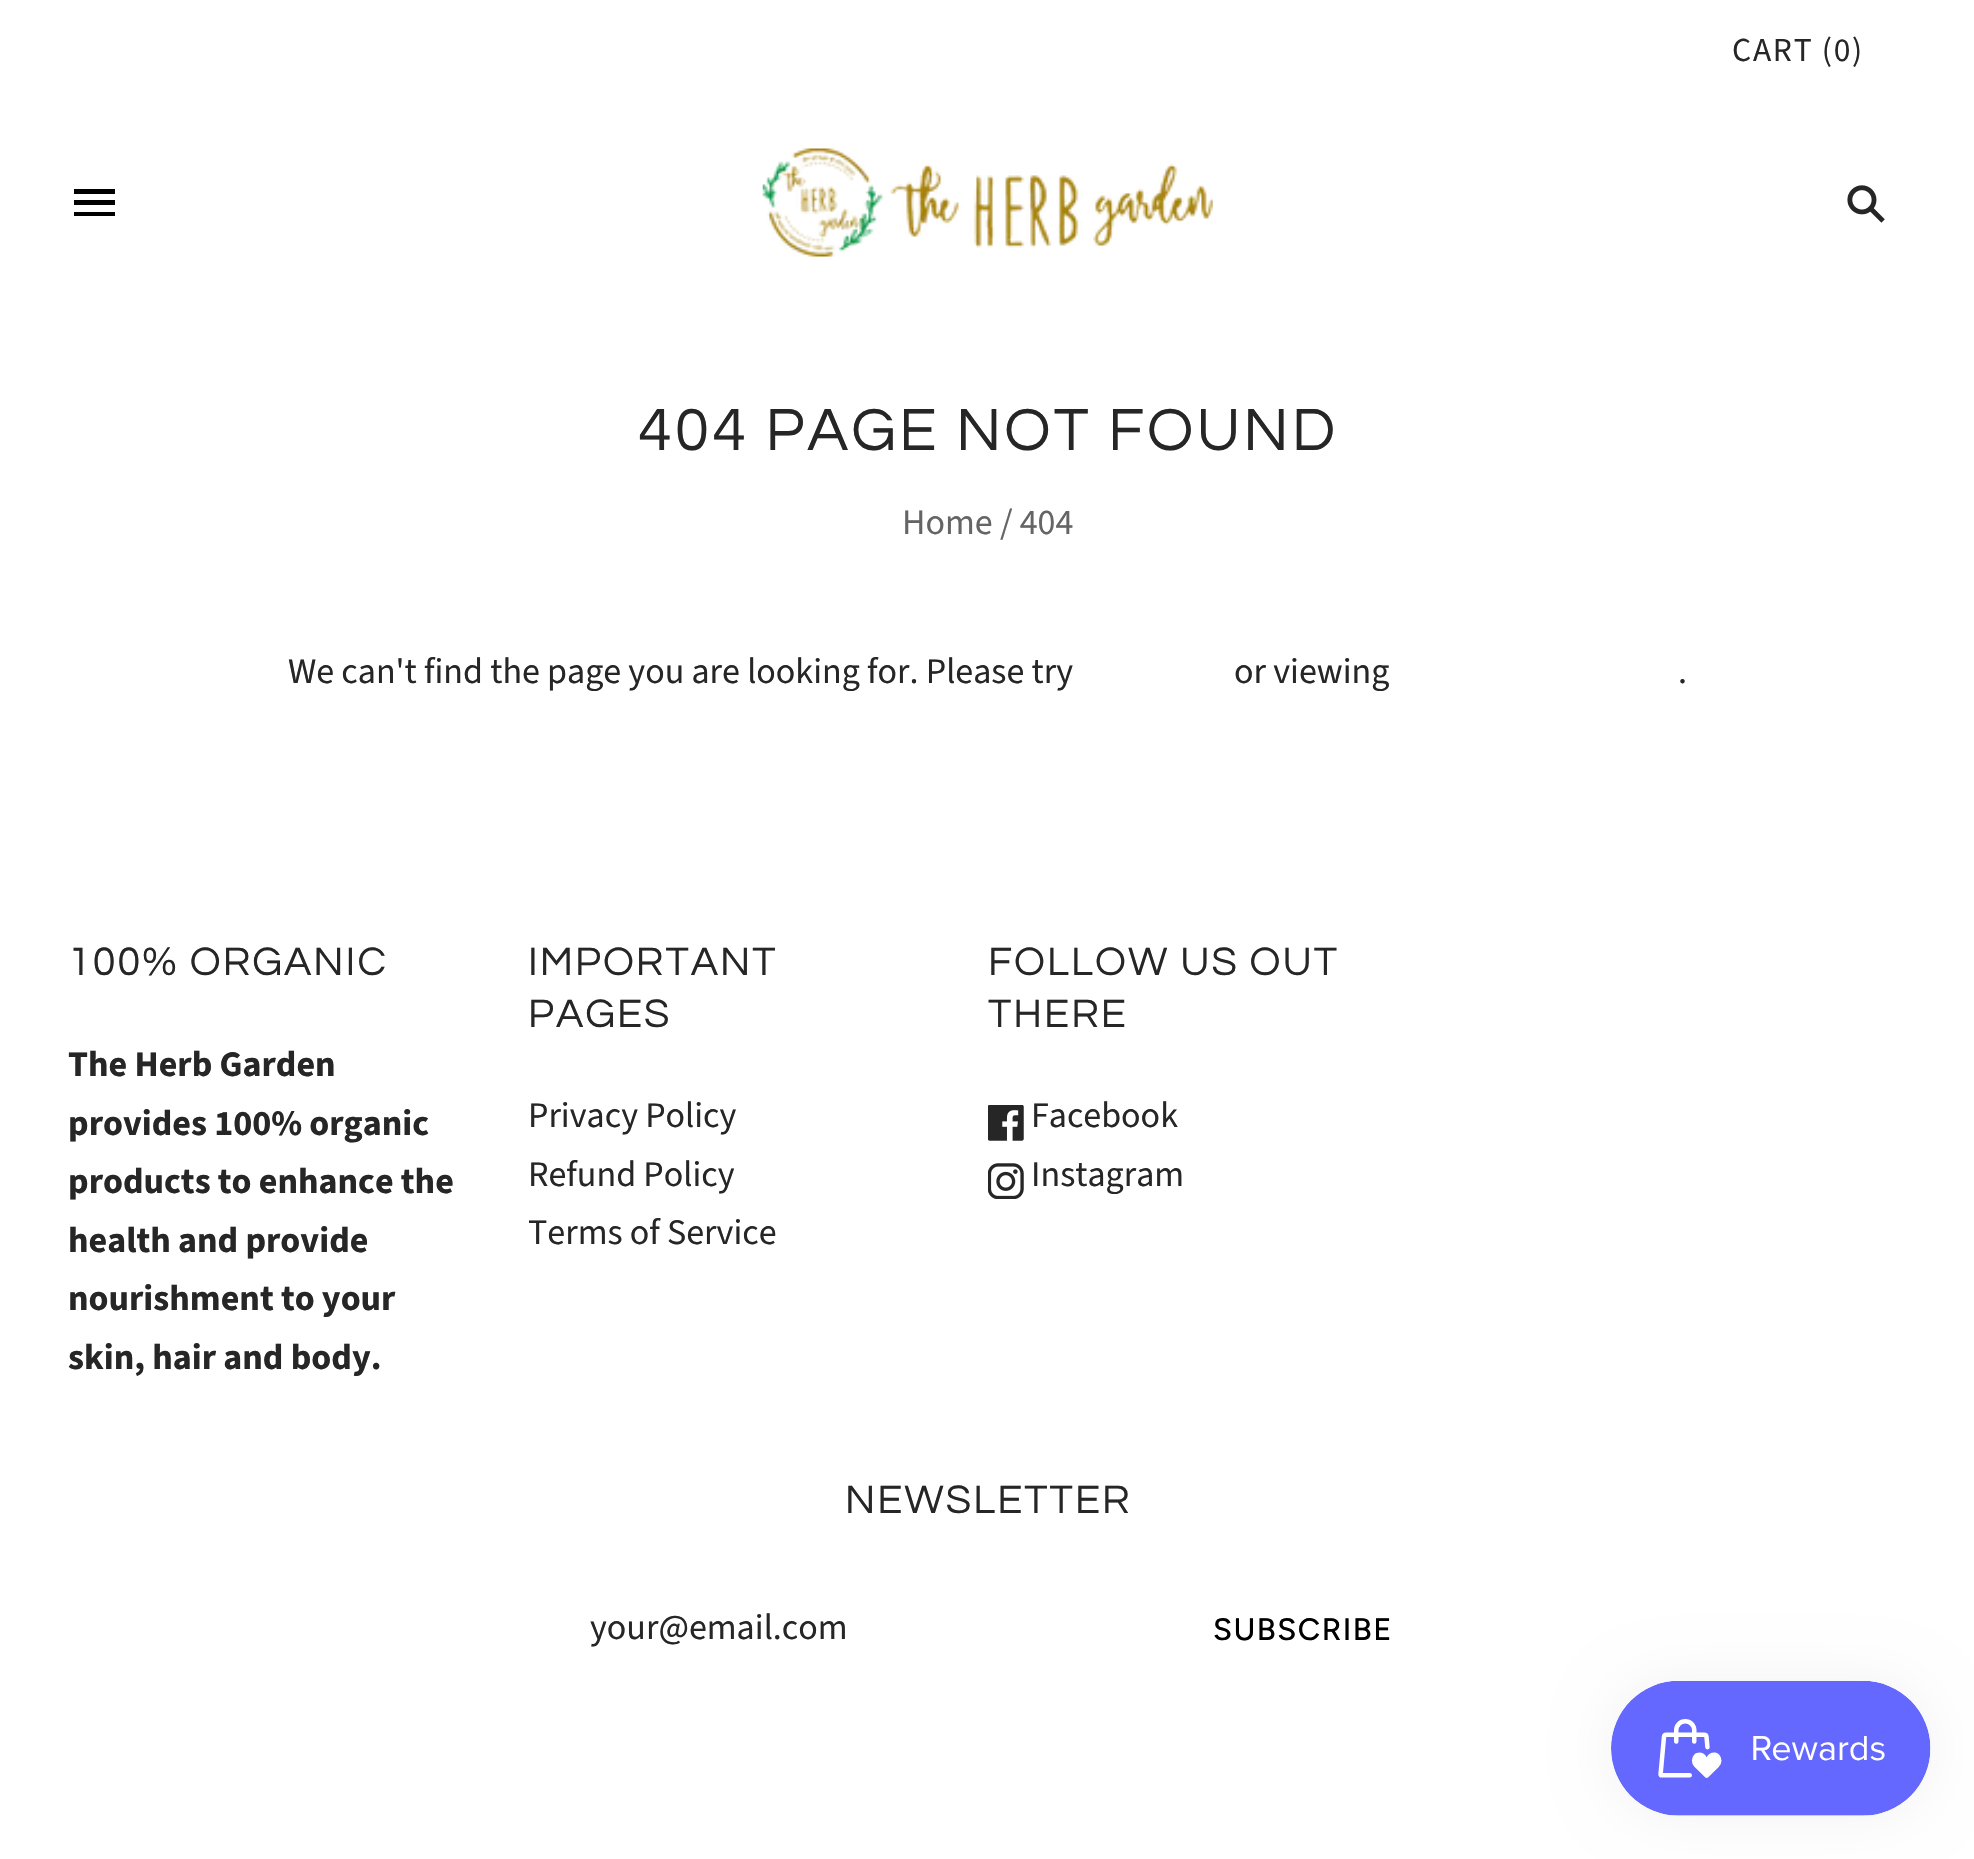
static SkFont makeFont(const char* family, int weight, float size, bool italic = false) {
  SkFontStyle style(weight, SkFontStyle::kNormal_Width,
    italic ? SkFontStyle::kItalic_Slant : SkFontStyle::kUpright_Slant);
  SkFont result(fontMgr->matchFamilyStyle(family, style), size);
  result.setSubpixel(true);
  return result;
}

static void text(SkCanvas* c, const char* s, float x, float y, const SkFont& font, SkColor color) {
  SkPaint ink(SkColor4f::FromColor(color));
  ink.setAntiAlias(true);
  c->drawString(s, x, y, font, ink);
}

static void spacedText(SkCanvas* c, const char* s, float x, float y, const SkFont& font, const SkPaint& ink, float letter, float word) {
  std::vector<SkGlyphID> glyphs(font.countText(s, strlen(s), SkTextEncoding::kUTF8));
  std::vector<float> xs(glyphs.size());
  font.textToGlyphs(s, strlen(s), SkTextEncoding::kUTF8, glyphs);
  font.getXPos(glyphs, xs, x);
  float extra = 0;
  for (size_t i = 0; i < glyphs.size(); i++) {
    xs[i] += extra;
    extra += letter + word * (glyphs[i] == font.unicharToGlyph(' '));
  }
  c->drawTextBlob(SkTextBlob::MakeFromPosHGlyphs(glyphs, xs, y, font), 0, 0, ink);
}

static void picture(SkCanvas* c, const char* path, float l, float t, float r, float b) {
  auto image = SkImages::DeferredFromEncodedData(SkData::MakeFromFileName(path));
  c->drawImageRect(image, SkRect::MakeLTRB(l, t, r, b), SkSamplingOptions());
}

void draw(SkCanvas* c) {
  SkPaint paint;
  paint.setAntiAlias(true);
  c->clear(0xffffffff);
  SkFont face1 = makeFont("Source Sans Pro", 400, 33.5f);
  paint.setColor(0xff262626);
  spacedText(c, "CART (0)", 1732, 61, face1, paint, 1.75f, 0);
  paint.setColor(0xff000000);
  c->drawPath(SkPathBuilder(SkPathFillType::kEvenOdd).moveTo(74, 189).lineTo(115, 189).lineTo(115, 194).lineTo(74, 194).close().moveTo(74, 200).lineTo(115, 200).lineTo(115, 205).lineTo(74, 205).close().moveTo(74, 212).lineTo(115, 212).lineTo(115, 216).lineTo(74, 216).close().detach(), paint);
  picture(c, "img_01.png", 762, 148, 1213, 257);
  picture(c, "img_02.png", 1847, 185, 1885, 223);
  SkFont face2 = makeFont("Questrial", 400, 61.75f);
  paint.setColor(0xff262626);
  spacedText(c, "404 PAGE NOT FOUND", 638, 450, face2, paint, 3.1f, 0);
  SkFont face3 = makeFont("Source Sans Pro", 400, 36);
  text(c, "Home / 404", 902, 534, face3, 0xff656565);
  text(c, "We can't find the page you are looking for. Please try", 288, 683, face3, 0xff262626);
  text(c, "or viewing", 1234, 683, face3, 0xff262626);
  text(c, ".", 1678, 683, face3, 0xff262626);
  SkFont face4 = makeFont("Questrial", 400, 41.25f);
  spacedText(c, "100% ORGANIC", 68, 975, face4, paint, 2, 0);
  SkFont face5 = makeFont("Source Sans Pro", 700, 36);
  text(c, "The Herb Garden", 68, 1076, face5, 0xff262626);
  text(c, "provides 100% organic", 68, 1135, face5, 0xff262626);
  text(c, "products to enhance the", 68, 1193, face5, 0xff262626);
  text(c, "health and provide", 68, 1252, face5, 0xff262626);
  text(c, "nourishment to your", 68, 1310, face5, 0xff262626);
  text(c, "skin, hair and body.", 68, 1369, face5, 0xff262626);
  spacedText(c, "IMPORTANT", 528, 975, face4, paint, 2, 0);
  spacedText(c, "PAGES", 528, 1027, face4, paint, 2, 0);
  text(c, "Privacy Policy", 528, 1127, face3, 0xff262626);
  text(c, "Refund Policy", 528, 1186, face3, 0xff262626);
  text(c, "Terms of Service", 528, 1244, face3, 0xff262626);
  spacedText(c, "FOLLOW US OUT", 988, 975, face4, paint, 2, 0);
  spacedText(c, "THERE", 988, 1027, face4, paint, 2, 0);
  picture(c, "img_03.png", 988, 1105, 1024, 1141);
  text(c, "Facebook", 1031, 1127, face3, 0xff262626);
  picture(c, "img_04.png", 988, 1163, 1024, 1199);
  text(c, "Instagram", 1031, 1186, face3, 0xff262626);
  spacedText(c, "NEWSLETTER", 845, 1513, face4, paint, 2, 0);
  text(c, "your@email.com", 590, 1639, face3, 0xff262626);
  SkFont face6 = makeFont("Figtree", 500, 31);
  paint.setColor(0xff000000);
  spacedText(c, "SUBSCRIBE", 1213, 1640, face6, paint, 1.5f, 0);
  paint.setColor(0x0d000000);
  paint.setMaskFilter(SkMaskFilter::MakeBlur(kNormal_SkBlurStyle, 28));
  c->drawRoundRect(SkRect::MakeLTRB(1611, 1681, 1931, 1816), 67.5f, 67.5f, paint);
  paint.setMaskFilter(nullptr);
  picture(c, "img_05.png", 1611, 1681, 1931, 1816);
}
